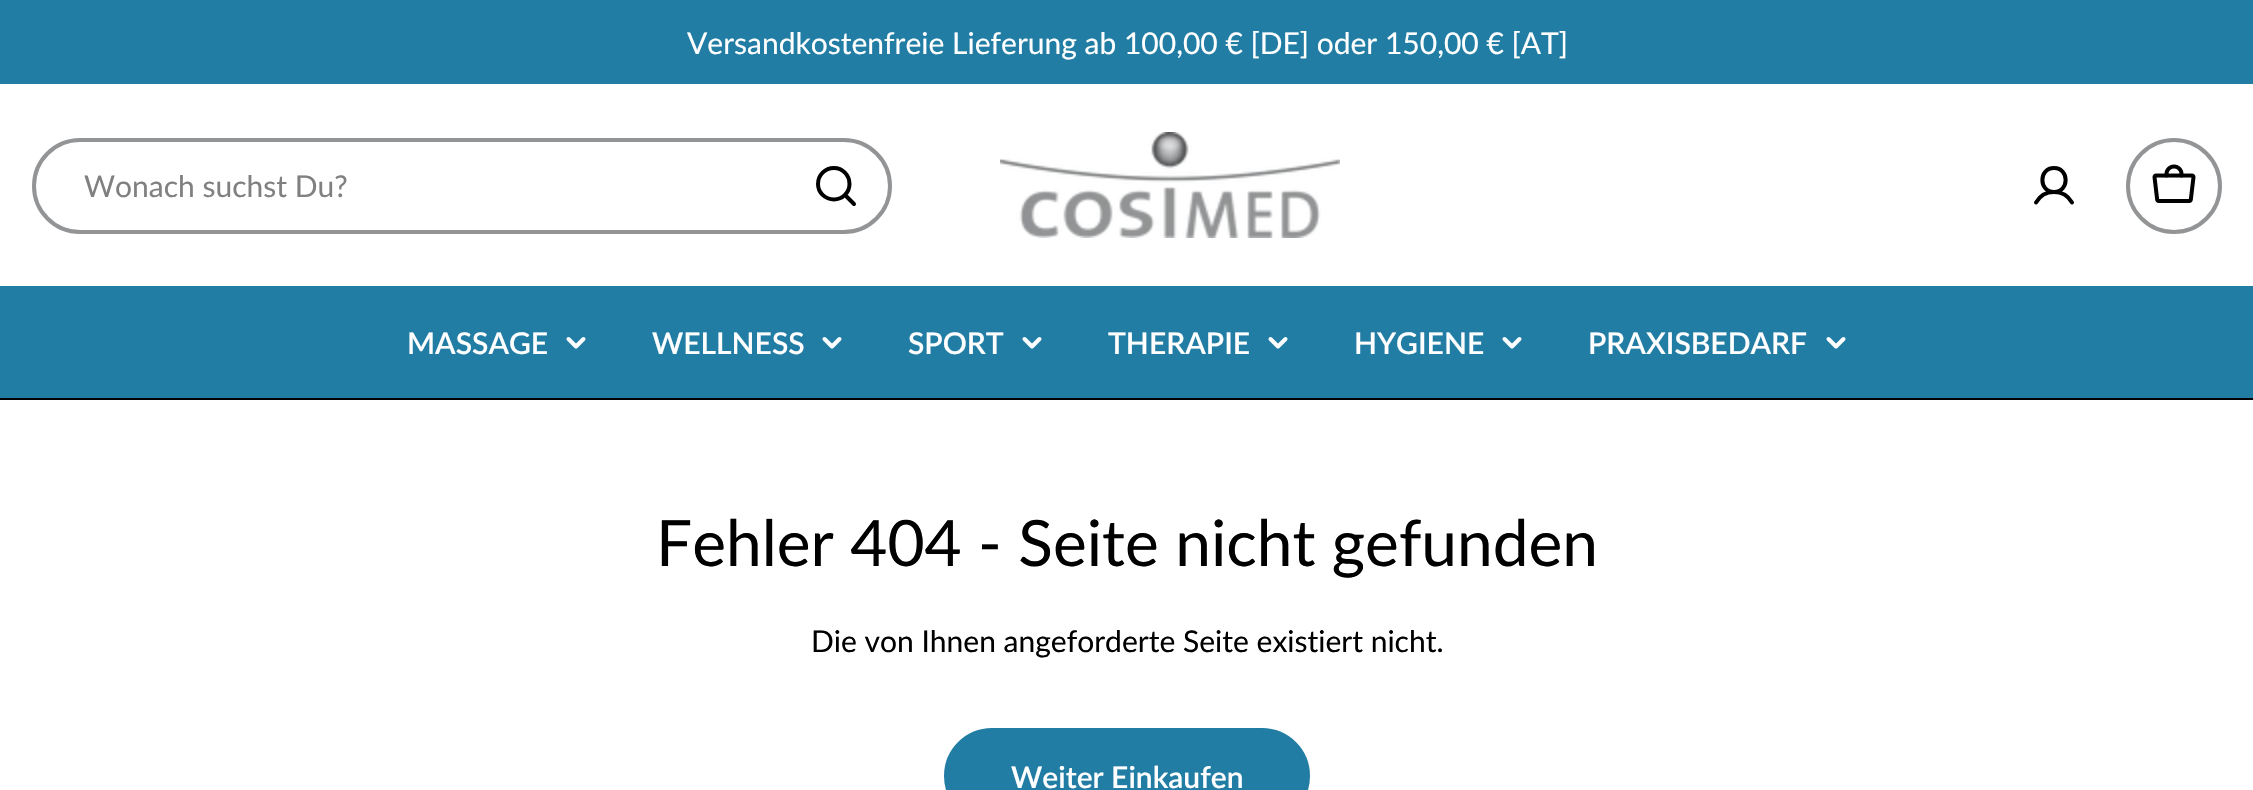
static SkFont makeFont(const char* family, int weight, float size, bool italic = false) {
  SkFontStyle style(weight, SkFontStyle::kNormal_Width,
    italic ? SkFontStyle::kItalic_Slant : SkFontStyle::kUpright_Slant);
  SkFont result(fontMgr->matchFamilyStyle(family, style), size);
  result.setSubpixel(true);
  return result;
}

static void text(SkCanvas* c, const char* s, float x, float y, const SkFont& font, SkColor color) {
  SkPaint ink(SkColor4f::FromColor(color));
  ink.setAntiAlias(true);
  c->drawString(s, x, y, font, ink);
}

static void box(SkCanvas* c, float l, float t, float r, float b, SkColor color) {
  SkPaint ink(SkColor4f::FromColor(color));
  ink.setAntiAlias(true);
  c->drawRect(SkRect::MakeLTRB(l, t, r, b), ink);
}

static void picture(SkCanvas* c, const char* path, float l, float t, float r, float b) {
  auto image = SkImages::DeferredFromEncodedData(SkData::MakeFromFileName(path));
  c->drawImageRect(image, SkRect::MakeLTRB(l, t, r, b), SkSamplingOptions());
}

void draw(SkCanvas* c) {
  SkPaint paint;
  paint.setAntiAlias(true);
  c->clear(0xffffffff);
  box(c, 0, 0, 2253, 84, 0xff227da4);
  SkFont face1 = makeFont("Lato", 400, 30);
  text(c, "Versandkostenfreie Lieferung ab 100,00 € [DE] oder 150,00 € [AT]", 687, 54, face1, 0xffffffff);
  paint.setStyle(SkPaint::kStroke_Style);
  paint.setStrokeWidth(4);
  paint.setColor(0xff939496);
  c->drawRoundRect(SkRect::MakeLTRB(34, 140, 890, 232), 46, 46, paint);
  text(c, "Wonach suchst Du?", 84, 197, face1, 0xff808080);
  paint.setStrokeCap(SkPaint::kRound_Cap);
  paint.setStrokeJoin(SkPaint::kRound_Join);
  paint.setColor(0xff000000);
  c->drawPath(SkPathBuilder().moveTo(834, 199.5f).cubicTo(842.5f, 199.5f, 849.5f, 192.5f, 849.5f, 184).cubicTo(849.5f, 175, 842.5f, 168, 834, 168).cubicTo(825, 168, 818, 175, 818, 184).cubicTo(818, 192.5f, 825, 199.5f, 834, 199.5f).close().moveTo(845, 195).lineTo(854, 204).detach(), paint);
  picture(c, "img_01.png", 1000, 132, 1340, 238);
  c->drawPath(SkPathBuilder().moveTo(2054, 192).cubicTo(2069.5f, 192, 2069.5f, 168, 2054, 168).cubicTo(2038.5f, 168, 2038.5f, 192, 2054, 192).close().moveTo(2036, 202.5f).cubicTo(2044, 188.5f, 2064, 188.5f, 2072, 202.5f).detach(), paint);
  paint.setStrokeCap(SkPaint::kButt_Cap);
  paint.setStrokeJoin(SkPaint::kMiter_Join);
  paint.setColor(0xff939496);
  c->drawCircle(2174, 186, 46, paint);
  picture(c, "img_02.png", 2152, 164, 2196, 203);
  box(c, 0, 286, 2253, 398, 0xff227da4);
  box(c, 0, 398, 2253, 400, 0xff000000);
  SkFont face2 = makeFont("Lato", 600, 30);
  text(c, "MASSAGE", 407, 354, face2, 0xffffffff);
  paint.setStrokeCap(SkPaint::kRound_Cap);
  paint.setStrokeJoin(SkPaint::kRound_Join);
  paint.setColor(0xffffffff);
  c->drawPath(SkPathBuilder().moveTo(583.5f, 339).lineTo(576, 346.5f).lineTo(568.5f, 339).detach(), paint);
  text(c, "WELLNESS", 652, 354, face2, 0xffffffff);
  c->drawPath(SkPathBuilder().moveTo(839.5f, 339).lineTo(832, 346.5f).lineTo(824.5f, 339).detach(), paint);
  text(c, "SPORT", 908, 354, face2, 0xffffffff);
  c->drawPath(SkPathBuilder().moveTo(1039.5f, 339).lineTo(1032, 346.5f).lineTo(1024.5f, 339).detach(), paint);
  text(c, "THERAPIE", 1108, 354, face2, 0xffffffff);
  c->drawPath(SkPathBuilder().moveTo(1285.5f, 339).lineTo(1278, 346.5f).lineTo(1270.5f, 339).detach(), paint);
  text(c, "HYGIENE", 1354, 354, face2, 0xffffffff);
  c->drawPath(SkPathBuilder().moveTo(1519.5f, 339).lineTo(1512, 346.5f).lineTo(1504.5f, 339).detach(), paint);
  text(c, "PRAXISBEDARF", 1588, 354, face2, 0xffffffff);
  c->drawPath(SkPathBuilder().moveTo(1843.5f, 339).lineTo(1836, 346.5f).lineTo(1828.5f, 339).detach(), paint);
  SkFont face3 = makeFont("Lato", 400, 64);
  text(c, "Fehler 404 - Seite nicht gefunden", 656, 566, face3, 0xff000000);
  text(c, "Die von Ihnen angeforderte Seite existiert nicht.", 811, 652, face1, 0xff000000);
  paint.setStyle(SkPaint::kFill_Style);
  paint.setColor(0xff227da4);
  c->drawRoundRect(SkRect::MakeLTRB(945, 729, 1309, 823), 47, 47, paint);
  paint.setStyle(SkPaint::kStroke_Style);
  paint.setStrokeWidth(2);
  paint.setStrokeCap(SkPaint::kButt_Cap);
  paint.setStrokeJoin(SkPaint::kMiter_Join);
  c->drawRoundRect(SkRect::MakeLTRB(945, 729, 1309, 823), 47, 47, paint);
  text(c, "Weiter Einkaufen", 1011, 788, face2, 0xffffffff);
}
